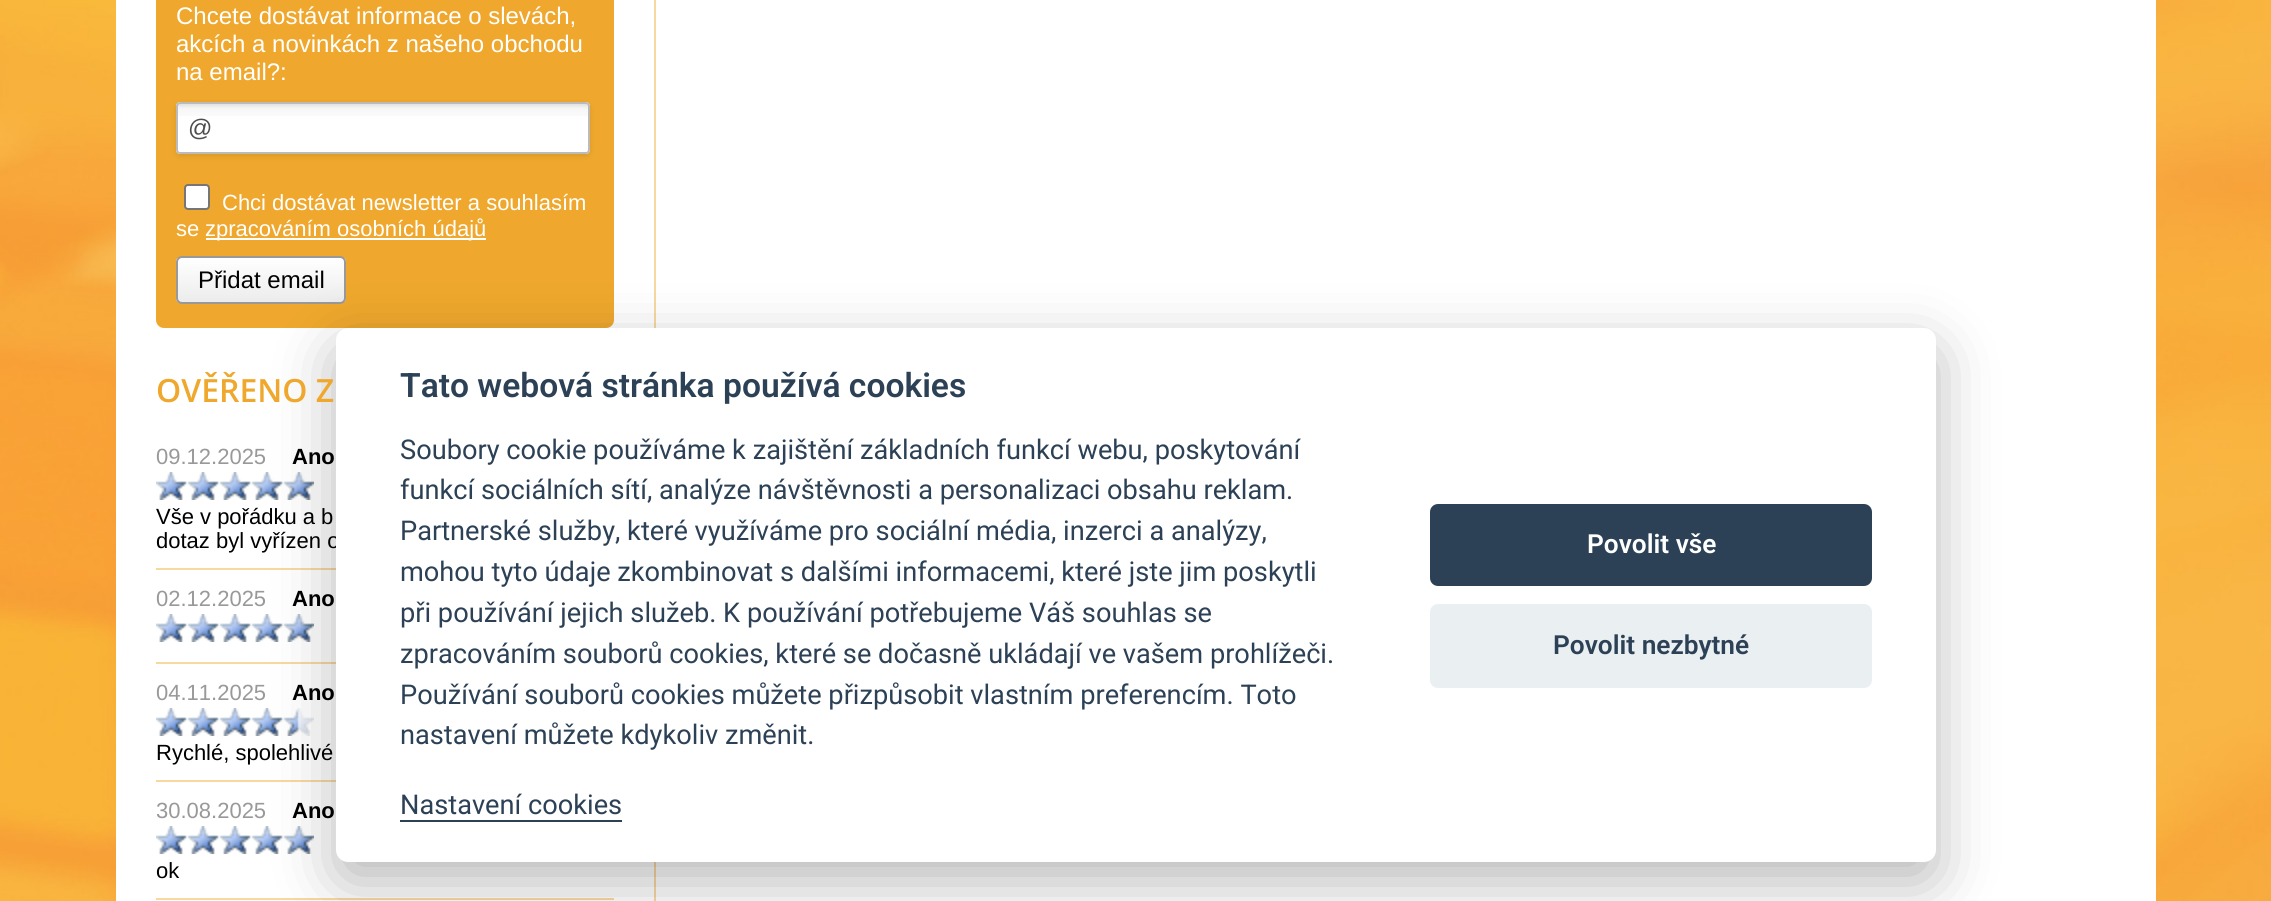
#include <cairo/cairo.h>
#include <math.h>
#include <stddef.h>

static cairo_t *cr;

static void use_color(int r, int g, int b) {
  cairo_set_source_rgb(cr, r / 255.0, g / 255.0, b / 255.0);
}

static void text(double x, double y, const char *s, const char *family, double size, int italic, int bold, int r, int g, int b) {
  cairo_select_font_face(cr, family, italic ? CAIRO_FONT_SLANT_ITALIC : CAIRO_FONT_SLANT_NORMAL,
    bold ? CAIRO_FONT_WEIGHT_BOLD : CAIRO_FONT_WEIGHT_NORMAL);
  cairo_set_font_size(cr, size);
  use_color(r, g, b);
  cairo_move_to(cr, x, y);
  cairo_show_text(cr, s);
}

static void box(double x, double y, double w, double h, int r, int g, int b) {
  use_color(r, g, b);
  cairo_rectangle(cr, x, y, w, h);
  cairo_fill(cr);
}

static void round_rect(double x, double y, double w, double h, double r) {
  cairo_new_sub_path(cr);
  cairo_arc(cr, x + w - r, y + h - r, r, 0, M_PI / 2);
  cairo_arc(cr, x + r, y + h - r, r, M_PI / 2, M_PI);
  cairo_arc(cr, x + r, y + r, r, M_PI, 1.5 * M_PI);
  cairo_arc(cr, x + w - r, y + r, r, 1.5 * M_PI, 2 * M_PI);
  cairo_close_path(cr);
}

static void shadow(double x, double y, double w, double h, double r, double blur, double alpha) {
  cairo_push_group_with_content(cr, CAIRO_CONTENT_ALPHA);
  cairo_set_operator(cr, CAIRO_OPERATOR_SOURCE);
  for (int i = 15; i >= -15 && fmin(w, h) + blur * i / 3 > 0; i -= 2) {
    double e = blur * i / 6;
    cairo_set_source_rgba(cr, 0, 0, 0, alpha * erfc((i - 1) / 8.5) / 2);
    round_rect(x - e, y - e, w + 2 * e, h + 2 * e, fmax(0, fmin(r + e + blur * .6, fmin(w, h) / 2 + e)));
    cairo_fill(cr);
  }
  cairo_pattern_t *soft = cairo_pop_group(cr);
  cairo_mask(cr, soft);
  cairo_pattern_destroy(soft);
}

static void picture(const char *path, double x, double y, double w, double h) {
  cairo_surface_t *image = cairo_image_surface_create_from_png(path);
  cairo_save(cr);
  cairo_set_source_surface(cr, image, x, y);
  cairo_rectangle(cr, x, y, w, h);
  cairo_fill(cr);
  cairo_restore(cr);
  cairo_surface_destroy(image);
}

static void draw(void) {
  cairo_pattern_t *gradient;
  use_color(255, 255, 255);
  cairo_paint(cr);
  picture("img_01.png", 0, 0, 2271, 901);
  box(116, 0, 2040, 901, 255, 255, 255);
  box(654, 0, 2, 901, 248, 216, 161);
  use_color(239, 168, 45);
  round_rect(156, -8, 458, 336, 8);
  cairo_fill(cr);
  use_color(0, 0, 0);
  shadow(176, 104, 414, 52, 4, 3, 0.1);
  use_color(255, 255, 255);
  round_rect(176, 102, 414, 52, 4);
  cairo_fill(cr);
  picture("img_02.png", 176, 104, 414, 12);
  round_rect(177, 103, 412, 50, 3);
  use_color(187, 187, 187);
  cairo_stroke(cr);
  use_color(255, 255, 255);
  round_rect(185, 185, 24, 24, 3);
  cairo_fill_preserve(cr);
  use_color(118, 118, 118);
  cairo_stroke(cr);
  box(206, 238, 280, 2, 255, 255, 255);
  cairo_save(cr);
  round_rect(176, 256, 170, 48, 6);
  cairo_clip(cr);
  gradient = cairo_pattern_create_linear(178, 258, 178, 302);
  cairo_pattern_add_color_stop_rgba(gradient, 0.05, 0.996, 0.996, 0.996, 1);
  cairo_pattern_add_color_stop_rgba(gradient, 1, 0.925, 0.925, 0.925, 1);
  cairo_set_source(cr, gradient);
  cairo_pattern_destroy(gradient);
  cairo_rectangle(cr, 176, 258, 170, 44);
  cairo_fill(cr);
  cairo_restore(cr);
  round_rect(177, 257, 168, 46, 5);
  use_color(153, 153, 153);
  cairo_stroke(cr);
  box(156, 568, 180, 2, 248, 216, 161);
  picture("img_03.png", 156, 472, 158, 28);
  box(156, 662, 180, 2, 248, 216, 161);
  picture("img_03.png", 156, 614, 158, 28);
  box(156, 780, 180, 2, 248, 216, 161);
  picture("img_04.png", 156, 708, 158, 28);
  box(156, 898, 458, 2, 248, 216, 161);
  picture("img_03.png", 156, 826, 158, 28);
  use_color(2, 2, 3);
  shadow(336, 348, 1600, 534, 12, 30, 0.28);
  text(176, 24, "Chcete dostávat informace o slevách,", "Liberation Sans", 24, 0, 0, 255, 255, 255);
  text(176, 52, "akcích a novinkách z našeho obchodu", "Liberation Sans", 24, 0, 0, 255, 255, 255);
  text(176, 80, "na email?:", "Liberation Sans", 24, 0, 0, 255, 255, 255);
  text(188, 136, "@", "Liberation Sans", 24, 0, 0, 77, 77, 77);
  text(222, 210, "Chci dostávat newsletter a souhlasím", "Liberation Sans", 22, 0, 0, 255, 255, 255);
  text(176, 236, "se", "Liberation Sans", 22, 0, 0, 255, 255, 255);
  text(205, 236, "zpracováním osobních údajů", "Liberation Sans", 22, 0, 0, 255, 255, 255);
  text(198, 288, "Přidat email", "Liberation Sans", 24, 0, 0, 0, 0, 0);
  text(156, 402, "OVĚŘENO Z", "Open Sans SemiBold", 32, 0, 0, 239, 168, 45);
  text(156, 464, "09.12.2025", "Liberation Sans", 22, 0, 0, 153, 153, 153);
  text(292, 464, "Ano", "Liberation Sans", 22, 0, 1, 0, 0, 0);
  text(156, 524, "Vše v pořádku a b", "Liberation Sans", 22, 0, 0, 0, 0, 0);
  text(156, 548, "dotaz byl vyřízen o", "Liberation Sans", 22, 0, 0, 0, 0, 0);
  text(156, 606, "02.12.2025", "Liberation Sans", 22, 0, 0, 153, 153, 153);
  text(292, 606, "Ano", "Liberation Sans", 22, 0, 1, 0, 0, 0);
  text(156, 700, "04.11.2025", "Liberation Sans", 22, 0, 0, 153, 153, 153);
  text(292, 700, "Ano", "Liberation Sans", 22, 0, 1, 0, 0, 0);
  text(156, 760, "Rychlé, spolehlivé", "Liberation Sans", 22, 0, 0, 0, 0, 0);
  text(156, 818, "30.08.2025", "Liberation Sans", 22, 0, 0, 153, 153, 153);
  text(292, 818, "Ano", "Liberation Sans", 22, 0, 1, 0, 0, 0);
  text(156, 878, "ok", "Liberation Sans", 22, 0, 0, 0, 0, 0);
  use_color(255, 255, 255);
  round_rect(336, 328, 1600, 534, 12);
  cairo_fill(cr);
  text(400, 397, "Tato webová stránka používá cookies", "Roboto SemiBold", 33.6, 0, 0, 45, 65, 86);
  text(400, 459, "Soubory cookie používáme k zajištění základních funkcí webu, poskytování", "Roboto", 27.2, 0, 0, 45, 65, 86);
  text(400, 499, "funkcí sociálních sítí, analýze návštěvnosti a personalizaci obsahu reklam.", "Roboto", 27.2, 0, 0, 45, 65, 86);
  text(400, 540, "Partnerské služby, které využíváme pro sociální média, inzerci a analýzy,", "Roboto", 27.2, 0, 0, 45, 65, 86);
  text(400, 581, "mohou tyto údaje zkombinovat s dalšími informacemi, které jste jim poskytli", "Roboto", 27.2, 0, 0, 45, 65, 86);
  text(400, 622, "při používání jejich služeb. K používání potřebujeme Váš souhlas se", "Roboto", 27.2, 0, 0, 45, 65, 86);
  text(400, 663, "zpracováním souborů cookies, které se dočasně ukládají ve vašem prohlížeči.", "Roboto", 27.2, 0, 0, 45, 65, 86);
  text(400, 704, "Používání souborů cookies můžete přizpůsobit vlastním preferencím. Toto", "Roboto", 27.2, 0, 0, 45, 65, 86);
  text(400, 744, "nastavení můžete kdykoliv změnit.", "Roboto", 27.2, 0, 0, 45, 65, 86);
  text(400, 814, "Nastavení cookies", "Roboto", 27.2, 0, 0, 45, 65, 86);
  box(400, 820, 222, 2, 45, 65, 86);
  round_rect(1430, 504, 442, 82, 8);
  cairo_fill(cr);
  text(1587, 553, "Povolit vše", "Roboto SemiBold", 26.25, 0, 0, 255, 255, 255);
  use_color(234, 239, 242);
  round_rect(1430, 604, 442, 84, 8);
  cairo_fill(cr);
  text(1553, 654, "Povolit nezbytné", "Roboto SemiBold", 26.25, 0, 0, 45, 65, 86);
}

int main(void) {
  cairo_surface_t *surface = cairo_image_surface_create(CAIRO_FORMAT_RGB24, 2271, 901);
  cr = cairo_create(surface);
  cairo_font_options_t *options = cairo_font_options_create();
  cairo_font_options_set_hint_metrics(options, CAIRO_HINT_METRICS_OFF);
  cairo_font_options_set_hint_style(options, CAIRO_HINT_STYLE_NONE);
  cairo_set_font_options(cr, options);
  cairo_set_miter_limit(cr, 4);
  draw();
  cairo_surface_write_to_png(surface, "out.png");
  cairo_font_options_destroy(options);
  cairo_destroy(cr);
  cairo_surface_destroy(surface);
  return 0;
}
